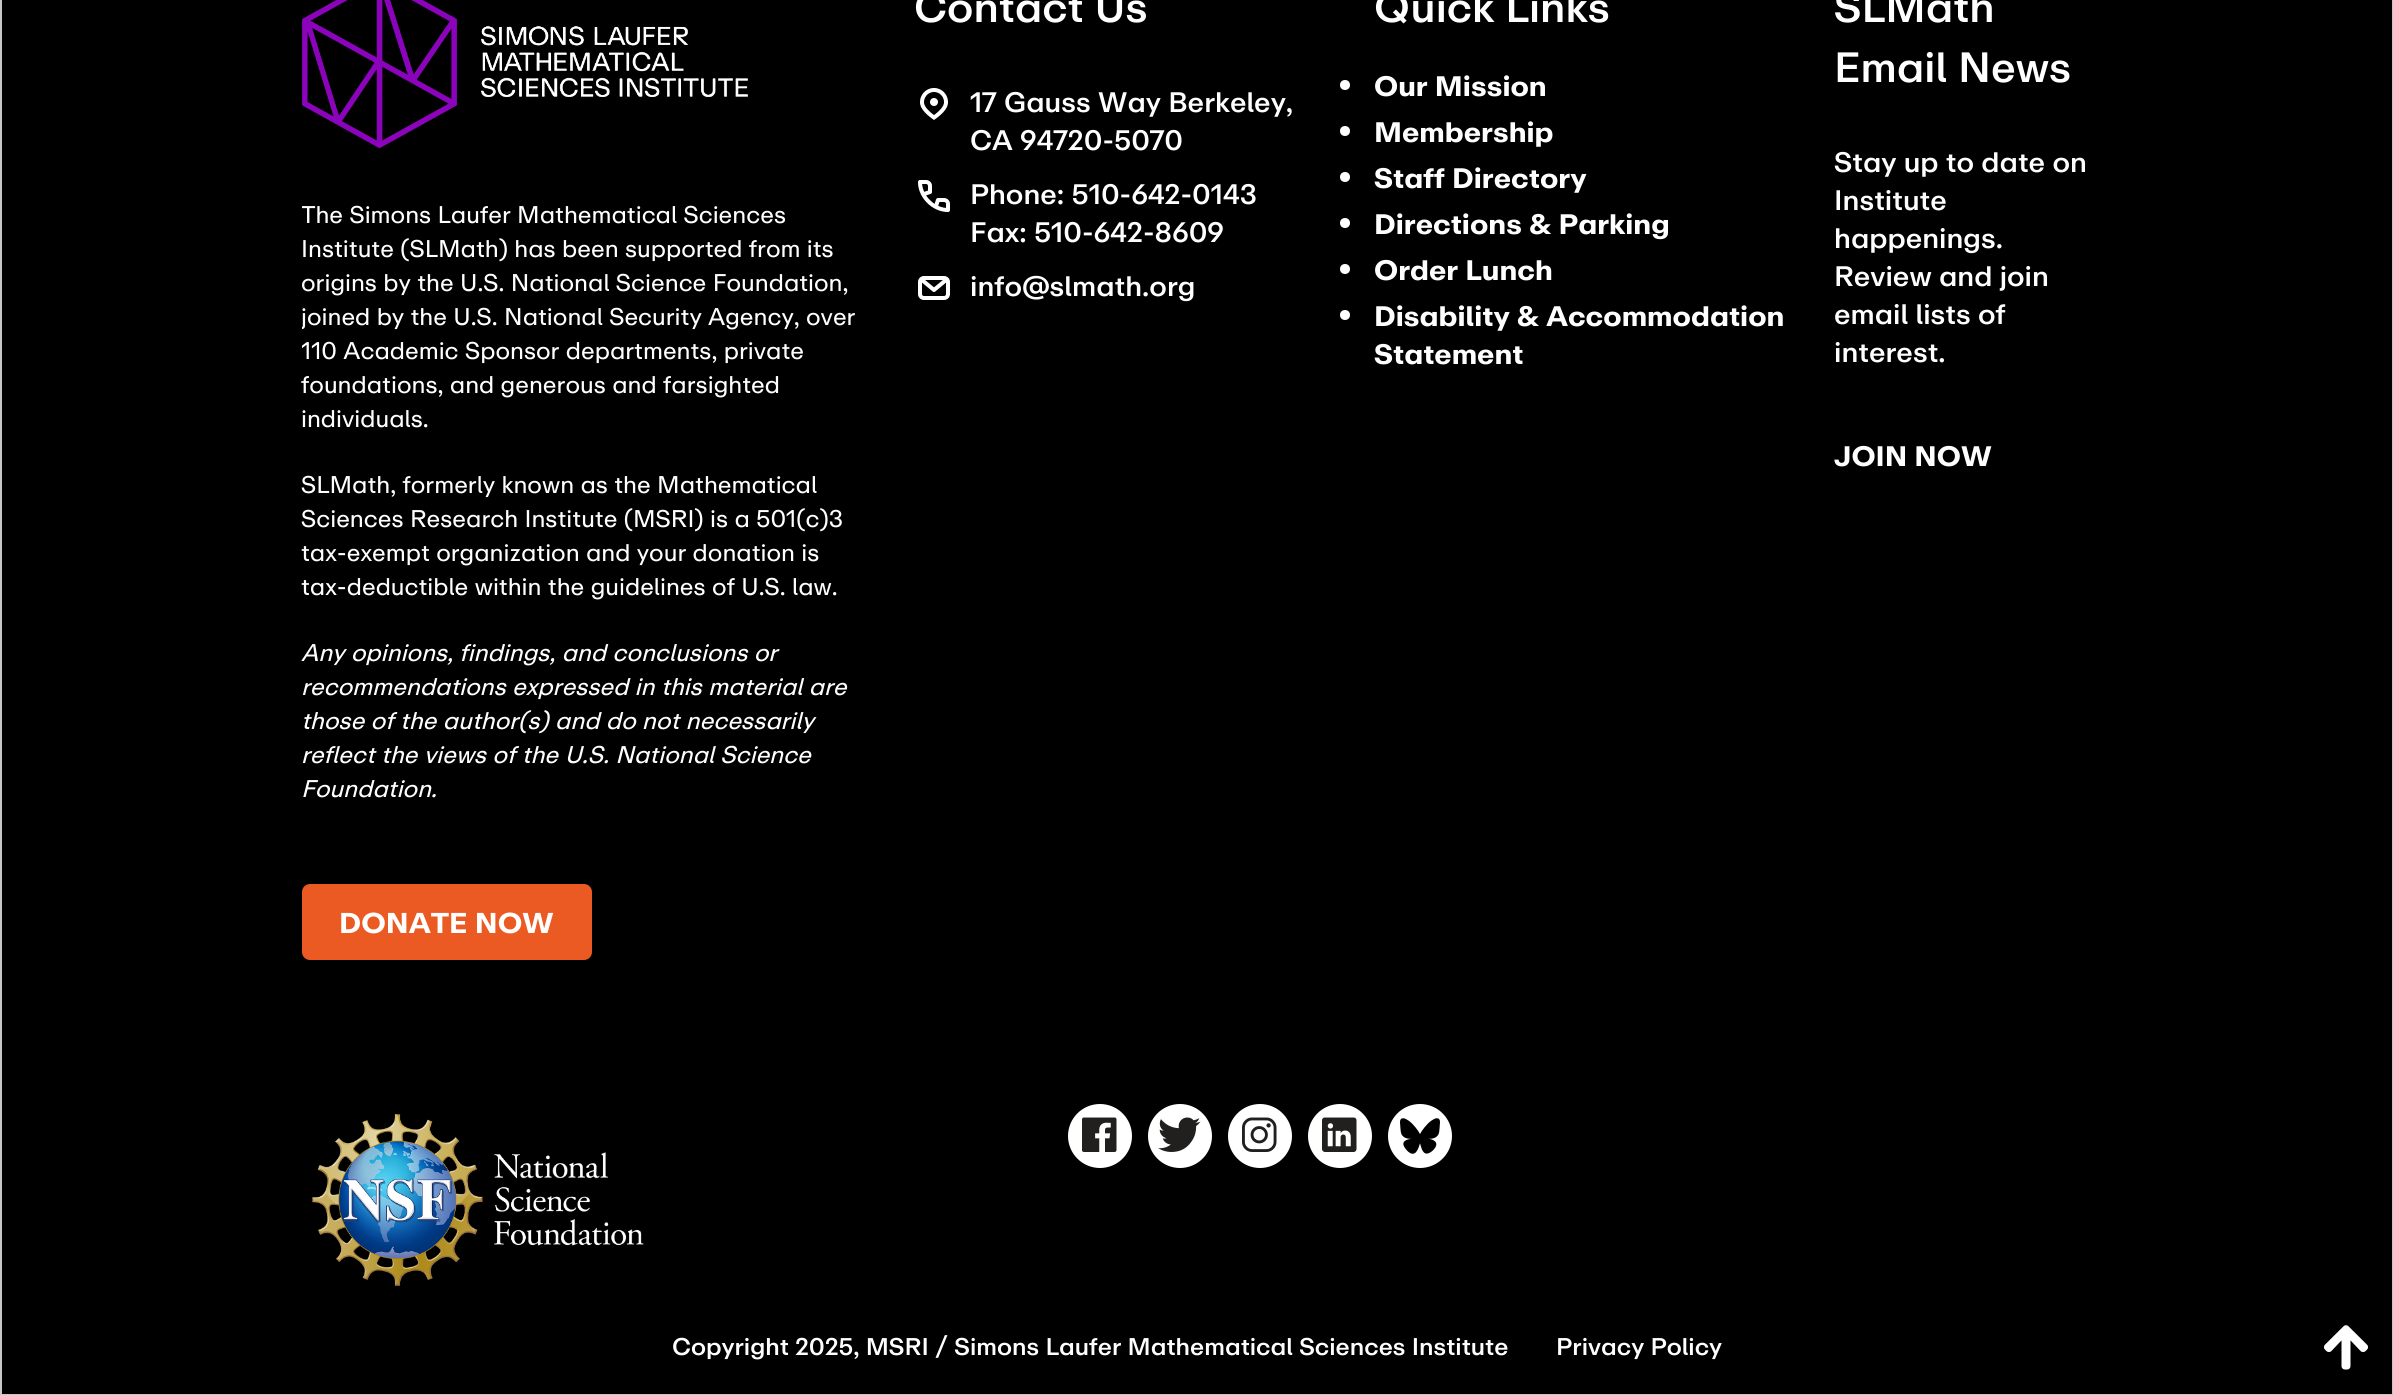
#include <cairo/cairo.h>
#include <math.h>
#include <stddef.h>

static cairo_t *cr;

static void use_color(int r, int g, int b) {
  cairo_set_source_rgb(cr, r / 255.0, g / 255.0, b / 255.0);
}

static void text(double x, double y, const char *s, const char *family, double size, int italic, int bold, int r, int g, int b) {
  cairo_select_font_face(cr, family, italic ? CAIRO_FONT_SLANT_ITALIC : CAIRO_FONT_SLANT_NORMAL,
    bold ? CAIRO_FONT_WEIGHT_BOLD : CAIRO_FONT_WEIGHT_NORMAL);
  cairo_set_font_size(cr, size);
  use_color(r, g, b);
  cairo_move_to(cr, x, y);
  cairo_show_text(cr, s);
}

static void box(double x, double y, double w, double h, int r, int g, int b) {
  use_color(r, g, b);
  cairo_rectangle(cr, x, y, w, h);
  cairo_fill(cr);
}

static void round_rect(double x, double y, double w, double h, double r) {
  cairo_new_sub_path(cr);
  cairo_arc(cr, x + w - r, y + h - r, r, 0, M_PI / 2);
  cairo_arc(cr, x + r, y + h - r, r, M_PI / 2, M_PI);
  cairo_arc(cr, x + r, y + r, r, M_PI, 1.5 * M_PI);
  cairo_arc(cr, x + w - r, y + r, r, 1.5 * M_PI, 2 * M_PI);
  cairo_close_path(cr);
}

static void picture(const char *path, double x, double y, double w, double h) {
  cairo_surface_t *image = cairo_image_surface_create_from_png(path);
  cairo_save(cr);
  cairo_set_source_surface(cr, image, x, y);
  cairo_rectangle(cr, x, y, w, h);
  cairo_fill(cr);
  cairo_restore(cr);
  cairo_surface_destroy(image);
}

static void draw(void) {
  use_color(255, 255, 255);
  cairo_paint(cr);
  cairo_rectangle(cr, 1, -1, 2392, 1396);
  use_color(199, 199, 199);
  cairo_stroke(cr);
  box(2, 0, 2390, 1394, 0, 0, 0);
  picture("img_01.png", 302, 0, 446, 148);
  use_color(235, 90, 35);
  round_rect(302, 884, 290, 76, 8);
  cairo_fill(cr);
  picture("img_02.png", 920, 88, 28, 32);
  picture("img_03.png", 918, 180, 32, 32);
  picture("img_04.png", 918, 276, 32, 24);
  use_color(255, 255, 255);
  cairo_arc(cr, 1345, 85, 5, 0, 2 * M_PI);
  cairo_fill(cr);
  cairo_arc(cr, 1345, 131, 5, 0, 2 * M_PI);
  cairo_fill(cr);
  cairo_arc(cr, 1345, 177, 5, 0, 2 * M_PI);
  cairo_fill(cr);
  cairo_arc(cr, 1345, 223, 5, 0, 2 * M_PI);
  cairo_fill(cr);
  cairo_arc(cr, 1345, 269, 5, 0, 2 * M_PI);
  cairo_fill(cr);
  cairo_arc(cr, 1345, 315, 5, 0, 2 * M_PI);
  cairo_fill(cr);
  picture("img_05.png", 312, 1114, 332, 172);
  cairo_arc(cr, 1100, 1136, 32, 0, 2 * M_PI);
  cairo_fill(cr);
  picture("img_06.png", 1082, 1117, 35, 35);
  cairo_arc(cr, 1180, 1136, 32, 0, 2 * M_PI);
  cairo_fill(cr);
  picture("img_07.png", 1158, 1117, 43, 35);
  cairo_arc(cr, 1260, 1136, 32, 0, 2 * M_PI);
  cairo_fill(cr);
  picture("img_08.png", 1242, 1117, 35, 35);
  cairo_arc(cr, 1340, 1136, 32, 0, 2 * M_PI);
  cairo_fill(cr);
  picture("img_09.png", 1322, 1117, 35, 35);
  cairo_arc(cr, 1420, 1136, 32, 0, 2 * M_PI);
  cairo_fill(cr);
  picture("img_10.png", 1400, 1118, 40, 36);
  cairo_arc(cr, 2346, 1348, 32, 0, 2 * M_PI);
  cairo_fill(cr);
  picture("img_11.png", 2314, 1316, 64, 64);
  cairo_save(cr);
  cairo_rectangle(cr, 302, 196, 564, 640);
  cairo_clip(cr);
  text(301, 223, "The Simons Laufer Mathematical Sciences", "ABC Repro", 24, 0, 0, 255, 255, 255);
  cairo_restore(cr);
  text(301, 257, "Institute (SLMath) has been supported from its", "ABC Repro", 24, 0, 0, 255, 255, 255);
  text(301, 291, "origins by the U.S. National Science Foundation,", "ABC Repro", 24, 0, 0, 255, 255, 255);
  cairo_save(cr);
  cairo_rectangle(cr, 302, 196, 564, 640);
  cairo_clip(cr);
  text(301, 325, "joined by the U.S. National Security Agency, over", "ABC Repro", 24, 0, 0, 255, 255, 255);
  text(301, 359, "110 Academic Sponsor departments, private", "ABC Repro", 24, 0, 0, 255, 255, 255);
  cairo_restore(cr);
  text(301, 393, "foundations, and generous and farsighted", "ABC Repro", 24, 0, 0, 255, 255, 255);
  text(301, 427, "individuals.", "ABC Repro", 24, 0, 0, 255, 255, 255);
  text(301, 493, "SLMath, formerly known as the Mathematical", "ABC Repro", 24, 0, 0, 255, 255, 255);
  text(301, 527, "Sciences Research Institute (MSRI) is a 501(c)3", "ABC Repro", 24, 0, 0, 255, 255, 255);
  text(301, 561, "tax-exempt organization and your donation is", "ABC Repro", 24, 0, 0, 255, 255, 255);
  text(301, 595, "tax-deductible within the guidelines of U.S. law.", "ABC Repro", 24, 0, 0, 255, 255, 255);
  text(301, 661, "Any opinions, findings, and conclusions or", "ABC Repro", 24, 1, 0, 255, 255, 255);
  text(301, 695, "recommendations expressed in this material are", "ABC Repro", 24, 1, 0, 255, 255, 255);
  text(301, 729, "those of the author(s) and do not necessarily", "ABC Repro", 24, 1, 0, 255, 255, 255);
  text(301, 763, "reflect the views of the U.S. National Science", "ABC Repro", 24, 1, 0, 255, 255, 255);
  text(301, 797, "Foundation.", "ABC Repro", 24, 1, 0, 255, 255, 255);
  text(339, 933, "DONATE NOW", "ABC Repro", 28.5, 0, 1, 255, 255, 255);
  text(914, 22, "Contact Us", "ABC Repro Medium", 42, 0, 0, 255, 255, 255);
  text(970, 112, "17 Gauss Way Berkeley,", "ABC Repro Medium", 28, 0, 0, 255, 255, 255);
  text(970, 150, "CA 94720-5070", "ABC Repro Medium", 28, 0, 0, 255, 255, 255);
  text(970, 204, "Phone: 510-642-0143", "ABC Repro Medium", 28, 0, 0, 255, 255, 255);
  text(970, 242, "Fax: 510-642-8609", "ABC Repro Medium", 28, 0, 0, 255, 255, 255);
  text(970, 296, "info@slmath.org", "ABC Repro Medium", 28, 0, 0, 255, 255, 255);
  text(1374, 22, "Quick Links", "ABC Repro Medium", 42, 0, 0, 255, 255, 255);
  text(1374, 96, "Our Mission", "ABC Repro", 28, 0, 1, 255, 255, 255);
  text(1374, 142, "Membership", "ABC Repro", 28, 0, 1, 255, 255, 255);
  text(1374, 188, "Staff Directory", "ABC Repro", 28, 0, 1, 255, 255, 255);
  text(1374, 234, "Directions & Parking", "ABC Repro", 28, 0, 1, 255, 255, 255);
  text(1374, 280, "Order Lunch", "ABC Repro", 28, 0, 1, 255, 255, 255);
  text(1374, 326, "Disability & Accommodation", "ABC Repro", 28, 0, 1, 255, 255, 255);
  text(1374, 364, "Statement", "ABC Repro", 28, 0, 1, 255, 255, 255);
  text(1834, 22, "SLMath", "ABC Repro Medium", 42, 0, 0, 255, 255, 255);
  text(1834, 82, "Email News", "ABC Repro Medium", 42, 0, 0, 255, 255, 255);
  text(1834, 172, "Stay up to date on", "ABC Repro Medium", 28, 0, 0, 255, 255, 255);
  text(1834, 210, "Institute", "ABC Repro Medium", 28, 0, 0, 255, 255, 255);
  text(1834, 248, "happenings.", "ABC Repro Medium", 28, 0, 0, 255, 255, 255);
  text(1834, 286, "Review and join", "ABC Repro Medium", 28, 0, 0, 255, 255, 255);
  text(1834, 324, "email lists of", "ABC Repro Medium", 28, 0, 0, 255, 255, 255);
  text(1834, 362, "interest.", "ABC Repro Medium", 28, 0, 0, 255, 255, 255);
  text(1834, 466, "JOIN NOW", "ABC Repro", 28, 0, 1, 255, 255, 255);
  text(672, 1355, "Copyright 2025, MSRI / Simons Laufer Mathematical Sciences Institute", "ABC Repro Medium", 24, 0, 0, 255, 255, 255);
  text(1556, 1355, "Privacy Policy", "ABC Repro Medium", 24, 0, 0, 255, 255, 255);
}

int main(void) {
  cairo_surface_t *surface = cairo_image_surface_create(CAIRO_FORMAT_RGB24, 2393, 1395);
  cr = cairo_create(surface);
  cairo_font_options_t *options = cairo_font_options_create();
  cairo_font_options_set_hint_metrics(options, CAIRO_HINT_METRICS_OFF);
  cairo_font_options_set_hint_style(options, CAIRO_HINT_STYLE_NONE);
  cairo_set_font_options(cr, options);
  cairo_set_miter_limit(cr, 4);
  draw();
  cairo_surface_write_to_png(surface, "out.png");
  cairo_font_options_destroy(options);
  cairo_destroy(cr);
  cairo_surface_destroy(surface);
  return 0;
}
